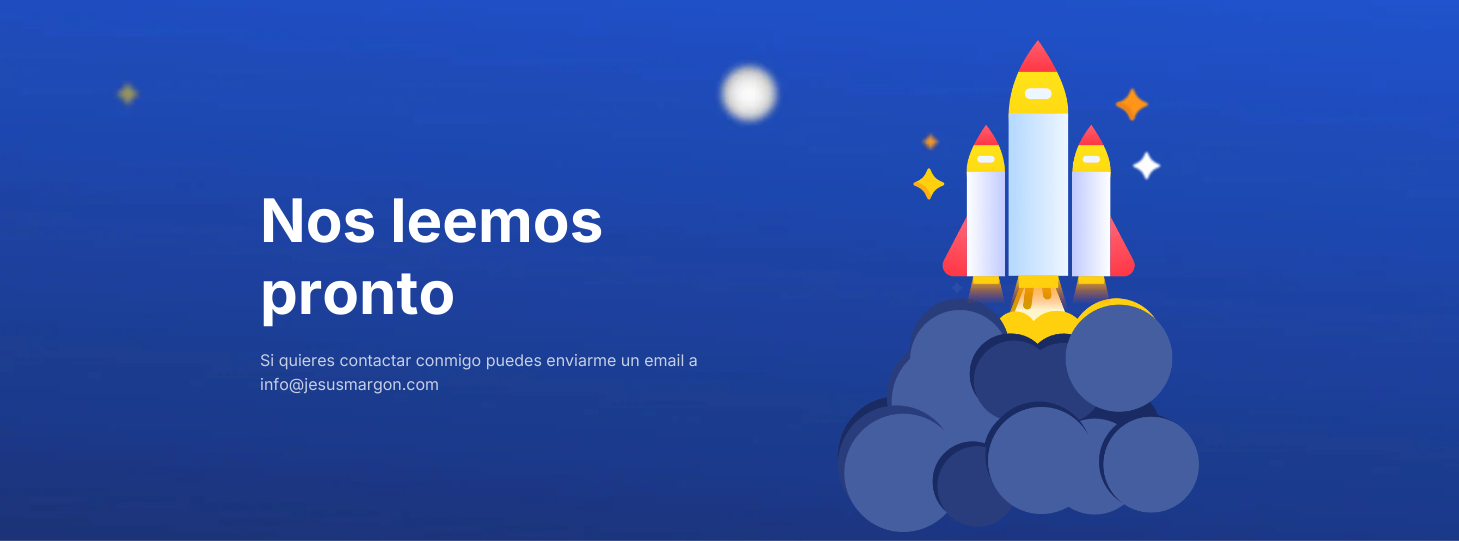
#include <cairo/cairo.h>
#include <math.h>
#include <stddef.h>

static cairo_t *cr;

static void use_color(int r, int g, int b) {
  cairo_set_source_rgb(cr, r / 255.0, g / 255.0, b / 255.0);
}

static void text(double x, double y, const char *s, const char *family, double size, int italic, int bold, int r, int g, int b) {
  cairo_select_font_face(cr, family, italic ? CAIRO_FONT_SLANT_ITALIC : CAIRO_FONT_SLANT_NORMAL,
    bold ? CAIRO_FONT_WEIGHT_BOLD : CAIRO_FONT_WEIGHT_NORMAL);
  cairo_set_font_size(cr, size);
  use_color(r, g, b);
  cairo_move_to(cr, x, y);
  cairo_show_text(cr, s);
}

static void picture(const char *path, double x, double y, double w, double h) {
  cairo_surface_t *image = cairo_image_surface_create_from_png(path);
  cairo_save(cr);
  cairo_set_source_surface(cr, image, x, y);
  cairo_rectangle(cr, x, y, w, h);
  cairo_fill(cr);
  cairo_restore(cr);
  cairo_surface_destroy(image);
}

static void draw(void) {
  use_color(255, 255, 255);
  cairo_paint(cr);
  picture("img_01.png", 0, 0, 1459, 541);
  picture("img_02.png", 838, 40, 361, 492);
  text(260, 242, "Nos leemos", "Inter", 60, 0, 1, 255, 255, 255);
  text(260, 314, "pronto", "Inter", 60, 0, 1, 255, 255, 255);
  text(260, 366, "Si quieres contactar conmigo puedes enviarme un email a", "Inter", 16, 0, 0, 198, 207, 228);
  text(260, 390, "info@jesusmargon.com", "Inter", 16, 0, 0, 198, 207, 228);
}

int main(void) {
  cairo_surface_t *surface = cairo_image_surface_create(CAIRO_FORMAT_RGB24, 1459, 541);
  cr = cairo_create(surface);
  cairo_font_options_t *options = cairo_font_options_create();
  cairo_font_options_set_hint_metrics(options, CAIRO_HINT_METRICS_OFF);
  cairo_font_options_set_hint_style(options, CAIRO_HINT_STYLE_NONE);
  cairo_set_font_options(cr, options);
  cairo_set_miter_limit(cr, 4);
  draw();
  cairo_surface_write_to_png(surface, "out.png");
  cairo_font_options_destroy(options);
  cairo_destroy(cr);
  cairo_surface_destroy(surface);
  return 0;
}
